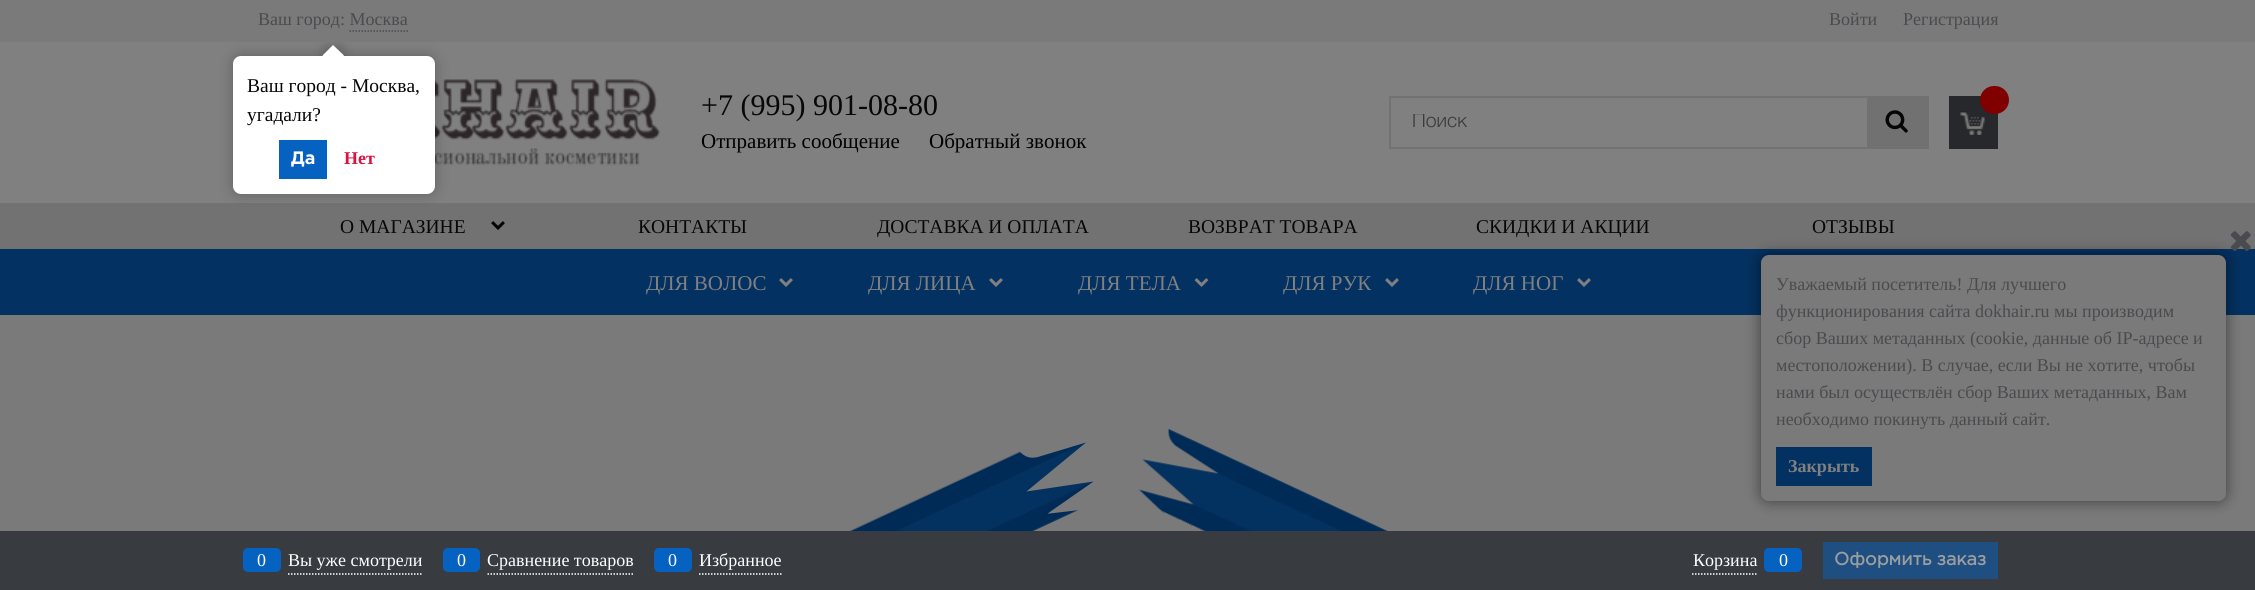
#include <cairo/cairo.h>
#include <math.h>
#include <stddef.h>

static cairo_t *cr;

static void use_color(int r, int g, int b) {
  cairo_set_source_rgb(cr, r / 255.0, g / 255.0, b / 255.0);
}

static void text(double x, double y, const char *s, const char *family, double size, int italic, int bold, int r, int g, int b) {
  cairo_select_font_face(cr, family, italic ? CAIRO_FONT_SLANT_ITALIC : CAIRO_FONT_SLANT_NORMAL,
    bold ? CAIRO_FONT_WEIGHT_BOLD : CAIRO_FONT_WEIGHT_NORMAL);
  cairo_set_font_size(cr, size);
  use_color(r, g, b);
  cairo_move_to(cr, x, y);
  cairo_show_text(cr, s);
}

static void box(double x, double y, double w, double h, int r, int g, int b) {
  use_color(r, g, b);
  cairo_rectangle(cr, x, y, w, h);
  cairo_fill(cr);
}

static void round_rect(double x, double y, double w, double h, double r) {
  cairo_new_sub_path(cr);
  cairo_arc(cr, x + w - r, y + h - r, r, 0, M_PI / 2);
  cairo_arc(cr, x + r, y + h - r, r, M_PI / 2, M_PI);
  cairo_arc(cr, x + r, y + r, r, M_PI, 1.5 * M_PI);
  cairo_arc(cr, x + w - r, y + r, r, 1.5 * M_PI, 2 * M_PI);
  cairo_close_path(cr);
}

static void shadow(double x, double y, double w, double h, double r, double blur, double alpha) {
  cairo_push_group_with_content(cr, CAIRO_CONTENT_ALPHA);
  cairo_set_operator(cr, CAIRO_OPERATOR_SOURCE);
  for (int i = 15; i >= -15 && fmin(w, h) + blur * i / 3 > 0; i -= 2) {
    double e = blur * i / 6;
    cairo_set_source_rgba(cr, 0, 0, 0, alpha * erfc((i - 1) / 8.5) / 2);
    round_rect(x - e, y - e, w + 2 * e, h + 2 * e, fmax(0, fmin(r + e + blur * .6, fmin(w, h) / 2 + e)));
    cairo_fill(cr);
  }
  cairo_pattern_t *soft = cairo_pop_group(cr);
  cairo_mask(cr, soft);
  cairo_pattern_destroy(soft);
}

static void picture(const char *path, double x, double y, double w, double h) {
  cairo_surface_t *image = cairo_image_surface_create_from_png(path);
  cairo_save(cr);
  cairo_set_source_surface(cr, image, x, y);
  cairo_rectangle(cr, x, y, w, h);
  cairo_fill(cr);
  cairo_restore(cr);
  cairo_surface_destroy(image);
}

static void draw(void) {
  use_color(128, 128, 128);
  cairo_paint(cr);
  box(0, 0, 2255, 42, 122, 122, 122);
  cairo_new_path(cr);
  cairo_move_to(cr, 349.5, 31);
  cairo_line_to(cr, 408, 31);
  use_color(74, 75, 78);
  cairo_set_line_width(cr, 1.5);
  cairo_set_dash(cr, (double[]){1.5, 1.5}, 2, 0);
  cairo_stroke(cr);
  picture("img_01.png", 435, 79, 226, 87);
  cairo_rectangle(cr, 1390, 97, 478, 51);
  use_color(113, 114, 114);
  cairo_set_line_width(cr, 2);
  cairo_set_dash(cr, NULL, 0, 0);
  cairo_stroke(cr);
  box(1869, 96, 60, 53, 113, 113, 113);
  picture("img_02.png", 1885, 110, 23, 23);
  box(1949, 96, 49, 53, 38, 40, 44);
  picture("img_03.png", 1960, 111, 25, 24);
  use_color(128, 0, 0);
  round_rect(1980, 86, 29, 28, 14);
  cairo_fill(cr);
  box(0, 203, 2255, 46, 114, 114, 114);
  picture("img_04.png", 491, 221, 14, 9);
  box(0, 315, 2255, 216, 122, 122, 122);
  box(0, 249, 2255, 66, 3, 49, 97);
  picture("img_05.png", 779, 278, 14, 9);
  picture("img_05.png", 989, 278, 14, 9);
  picture("img_06.png", 1194, 278, 15, 9);
  picture("img_05.png", 1385, 278, 14, 9);
  picture("img_05.png", 1577, 278, 14, 9);
  picture("img_07.png", 849, 428, 539, 103);
  box(0, 531, 2255, 59, 56, 60, 64);
  cairo_new_path(cr);
  cairo_move_to(cr, 288, 574);
  cairo_line_to(cr, 423, 574);
  use_color(255, 255, 255);
  cairo_set_line_width(cr, 1.5);
  cairo_set_dash(cr, (double[]){1.5, 1.5}, 2, 0);
  cairo_stroke(cr);
  use_color(6, 98, 193);
  round_rect(243, 548, 38, 24, 5);
  cairo_fill(cr);
  cairo_new_path(cr);
  cairo_move_to(cr, 487.5, 574);
  cairo_line_to(cr, 634.5, 574);
  use_color(255, 255, 255);
  cairo_stroke(cr);
  use_color(6, 98, 193);
  round_rect(443, 548, 37, 24, 5);
  cairo_fill(cr);
  cairo_new_path(cr);
  cairo_move_to(cr, 699, 574);
  cairo_line_to(cr, 781.5, 574);
  use_color(255, 255, 255);
  cairo_stroke(cr);
  use_color(6, 98, 193);
  round_rect(654, 548, 38, 24, 5);
  cairo_fill(cr);
  cairo_new_path(cr);
  cairo_move_to(cr, 1692, 574);
  cairo_line_to(cr, 1756.5, 574);
  use_color(255, 255, 255);
  cairo_stroke(cr);
  use_color(6, 98, 193);
  round_rect(1764, 548, 38, 24, 5);
  cairo_fill(cr);
  box(1823, 542, 175, 37, 31, 79, 129);
  use_color(0, 0, 0);
  shadow(233, 56, 202, 138, 8, 7, 0.25);
  use_color(255, 255, 255);
  round_rect(233, 56, 202, 138, 8);
  cairo_fill(cr);
  cairo_save(cr);
  cairo_rectangle(cr, 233, 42, 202, 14);
  cairo_clip(cr);
  use_color(0, 0, 0);
  shadow(326, 48, 15, 15, 0, 7, 0.25);
  cairo_restore(cr);
  cairo_save(cr);
  cairo_rectangle(cr, 233, 42, 202, 14);
  cairo_clip(cr);
  cairo_new_path(cr);
  cairo_move_to(cr, 333, 45);
  cairo_line_to(cr, 344, 55.5);
  cairo_line_to(cr, 333, 66);
  cairo_line_to(cr, 322.5, 55.5);
  cairo_close_path(cr);
  cairo_fill(cr);
  cairo_restore(cr);
  box(279, 140, 48, 39, 6, 98, 193);
  use_color(0, 0, 0);
  shadow(1761, 255, 465, 246, 8, 7.5, 0.5);
  use_color(122, 122, 122);
  round_rect(1761, 255, 465, 246, 8);
  cairo_fill(cr);
  picture("img_08.png", 2230, 231, 21, 20);
  box(1776, 447, 96, 39, 3, 49, 97);
  text(258, 25, "Ваш город: Москва", "Liberation Serif", 18, 0, 0, 74, 75, 78);
  text(1829, 25, "Войти", "Liberation Serif", 18, 0, 0, 74, 75, 78);
  text(1903, 25, "Регистрация", "Liberation Serif", 18, 0, 0, 74, 75, 78);
  text(701, 115, "+7 (995) 901-08-80", "Liberation Serif", 30, 0, 0, 7, 7, 7);
  text(701, 148, "Отправить сообщение", "Liberation Serif", 21, 0, 0, 0, 0, 0);
  text(929, 148, "Обратный звонок", "Liberation Serif", 21, 0, 0, 0, 0, 0);
  cairo_save(cr);
  cairo_rectangle(cr, 1412, 114, 433, 18);
  cairo_clip(cr);
  text(1412, 127, "Поиск", "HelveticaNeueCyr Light", 19.5, 0, 0, 59, 59, 59);
  cairo_restore(cr);
  text(340, 233, "О МАГАЗИНЕ", "Liberation Serif", 19.5, 0, 0, 7, 7, 7);
  text(638, 233, "КОНТАКТЫ", "Liberation Serif", 19.5, 0, 0, 7, 7, 7);
  text(877, 233, "ДОСТАВКА И ОПЛАТА", "Liberation Serif", 19.5, 0, 0, 7, 7, 7);
  text(1188, 233, "ВОЗВРАТ ТОВАРА", "Liberation Serif", 19.5, 0, 0, 7, 7, 7);
  text(1476, 233, "СКИДКИ И АКЦИИ", "Liberation Serif", 19.5, 0, 0, 7, 7, 7);
  text(1812, 233, "ОТЗЫВЫ", "Liberation Serif", 19.5, 0, 0, 7, 7, 7);
  text(646, 290, "ДЛЯ ВОЛОС", "Liberation Serif", 21, 0, 0, 128, 128, 128);
  text(868, 290, "ДЛЯ ЛИЦА", "Liberation Serif", 21, 0, 0, 128, 128, 128);
  text(1078, 290, "ДЛЯ ТЕЛА", "Liberation Serif", 21, 0, 0, 128, 128, 128);
  text(1283, 290, "ДЛЯ РУК", "Liberation Serif", 21, 0, 0, 128, 128, 128);
  text(1473, 290, "ДЛЯ НОГ", "Liberation Serif", 21, 0, 0, 128, 128, 128);
  text(257, 566, "0", "Liberation Serif", 18, 0, 0, 255, 255, 255);
  text(288, 566, "Вы уже смотрели", "Liberation Serif", 18, 0, 0, 255, 255, 255);
  text(457, 566, "0", "Liberation Serif", 18, 0, 0, 255, 255, 255);
  text(487, 566, "Сравнение товаров", "Liberation Serif", 18, 0, 0, 255, 255, 255);
  text(668, 566, "0", "Liberation Serif", 18, 0, 0, 255, 255, 255);
  text(699, 566, "Избранное", "Liberation Serif", 18, 0, 0, 255, 255, 255);
  text(1693, 566, "Корзина", "Liberation Serif", 18, 0, 0, 255, 255, 255);
  text(1779, 566, "0", "Liberation Serif", 18, 0, 0, 255, 255, 255);
  text(1834, 565, "Оформить заказ", "Gotham", 18, 0, 1, 156, 158, 160);
  text(247, 92, "Ваш город - Москва,", "Liberation Serif", 19.5, 0, 0, 7, 7, 7);
  text(247, 121, "угадали?", "Liberation Serif", 19.5, 0, 0, 7, 7, 7);
  text(291, 164, "Да", "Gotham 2", 18, 0, 1, 255, 255, 255);
  text(344, 164, "Нет", "Liberation Serif", 18, 0, 1, 218, 18, 63);
  text(1776, 290, "Уважаемый посетитель! Для лучшего", "Liberation Serif", 18, 0, 0, 74, 75, 78);
  text(1776, 317, "функционирования сайта dokhair.ru мы производим", "Liberation Serif", 18, 0, 0, 74, 75, 78);
  text(1776, 344, "сбор Ваших метаданных (cookie, данные об IP-адресе и", "Liberation Serif", 18, 0, 0, 74, 75, 78);
  text(1776, 371, "местоположении). В случае, если Вы не хотите, чтобы", "Liberation Serif", 18, 0, 0, 74, 75, 78);
  text(1776, 398, "нами был осуществлён сбор Ваших метаданных, Вам", "Liberation Serif", 18, 0, 0, 74, 75, 78);
  text(1776, 425, "необходимо покинуть данный сайт.", "Liberation Serif", 18, 0, 0, 74, 75, 78);
  text(1788, 472, "Закрыть", "Liberation Serif", 18, 0, 1, 128, 128, 128);
}

int main(void) {
  cairo_surface_t *surface = cairo_image_surface_create(CAIRO_FORMAT_RGB24, 2255, 590);
  cr = cairo_create(surface);
  cairo_font_options_t *options = cairo_font_options_create();
  cairo_font_options_set_hint_metrics(options, CAIRO_HINT_METRICS_OFF);
  cairo_font_options_set_hint_style(options, CAIRO_HINT_STYLE_NONE);
  cairo_set_font_options(cr, options);
  cairo_set_miter_limit(cr, 4);
  draw();
  cairo_surface_write_to_png(surface, "out.png");
  cairo_font_options_destroy(options);
  cairo_destroy(cr);
  cairo_surface_destroy(surface);
  return 0;
}
